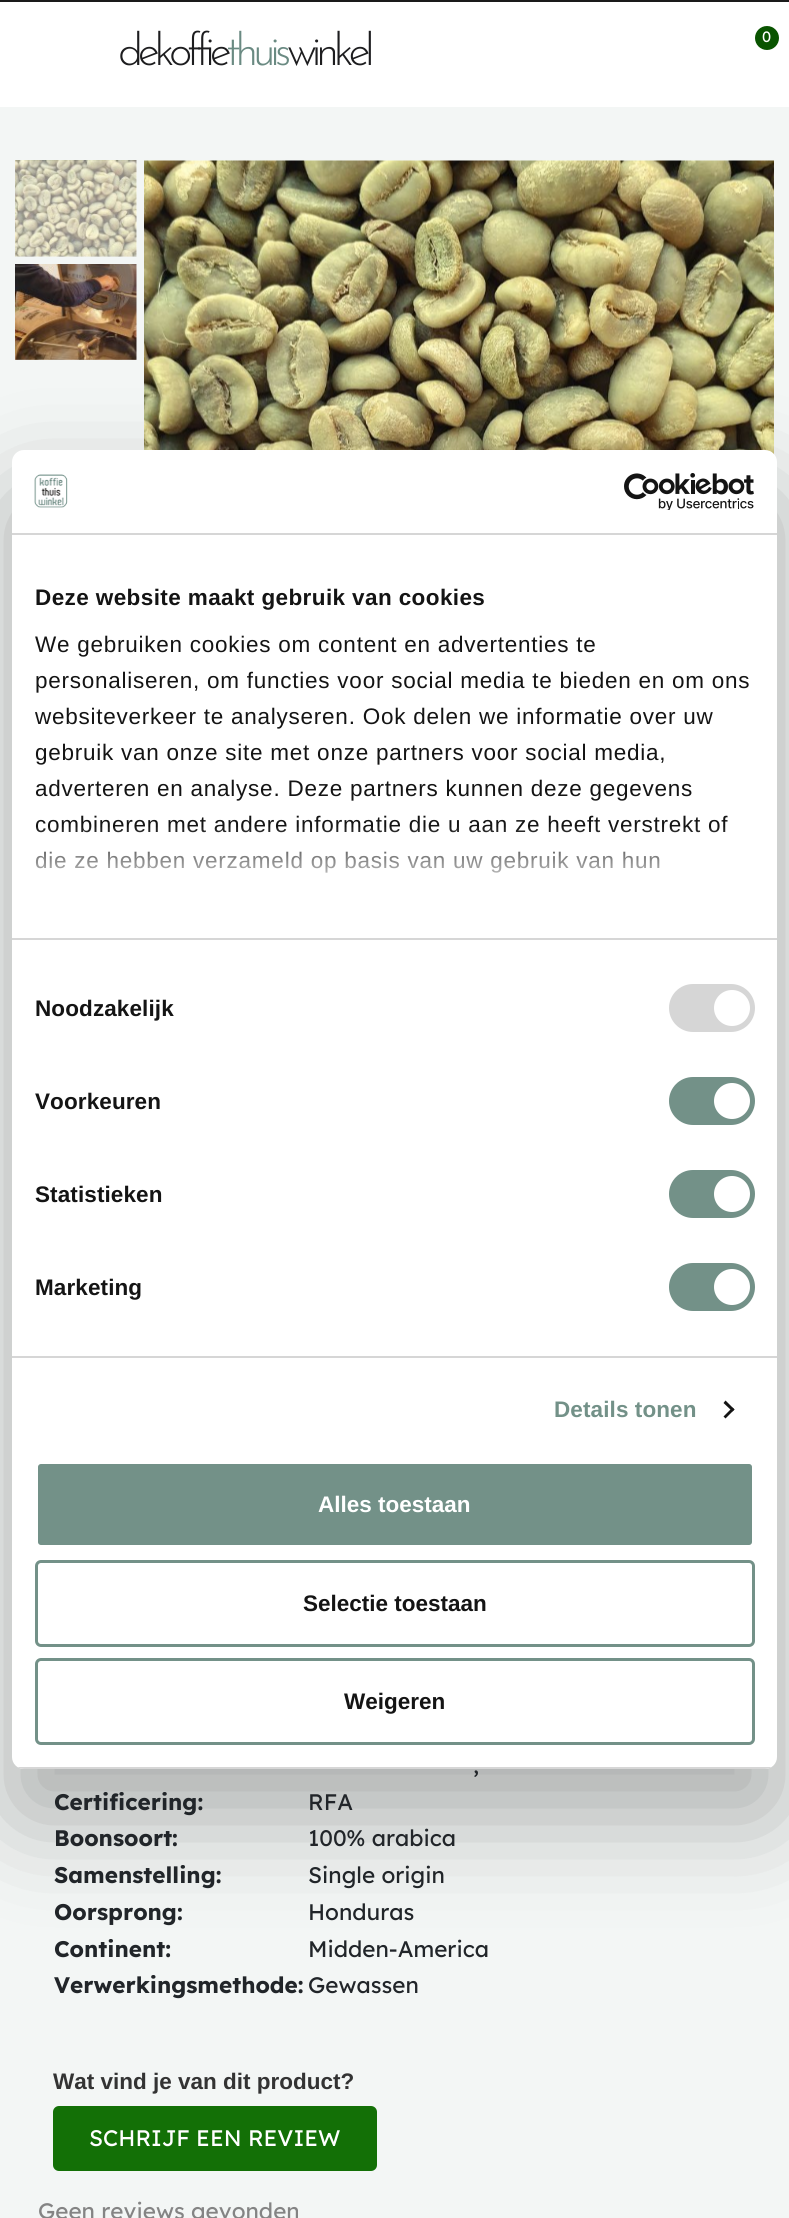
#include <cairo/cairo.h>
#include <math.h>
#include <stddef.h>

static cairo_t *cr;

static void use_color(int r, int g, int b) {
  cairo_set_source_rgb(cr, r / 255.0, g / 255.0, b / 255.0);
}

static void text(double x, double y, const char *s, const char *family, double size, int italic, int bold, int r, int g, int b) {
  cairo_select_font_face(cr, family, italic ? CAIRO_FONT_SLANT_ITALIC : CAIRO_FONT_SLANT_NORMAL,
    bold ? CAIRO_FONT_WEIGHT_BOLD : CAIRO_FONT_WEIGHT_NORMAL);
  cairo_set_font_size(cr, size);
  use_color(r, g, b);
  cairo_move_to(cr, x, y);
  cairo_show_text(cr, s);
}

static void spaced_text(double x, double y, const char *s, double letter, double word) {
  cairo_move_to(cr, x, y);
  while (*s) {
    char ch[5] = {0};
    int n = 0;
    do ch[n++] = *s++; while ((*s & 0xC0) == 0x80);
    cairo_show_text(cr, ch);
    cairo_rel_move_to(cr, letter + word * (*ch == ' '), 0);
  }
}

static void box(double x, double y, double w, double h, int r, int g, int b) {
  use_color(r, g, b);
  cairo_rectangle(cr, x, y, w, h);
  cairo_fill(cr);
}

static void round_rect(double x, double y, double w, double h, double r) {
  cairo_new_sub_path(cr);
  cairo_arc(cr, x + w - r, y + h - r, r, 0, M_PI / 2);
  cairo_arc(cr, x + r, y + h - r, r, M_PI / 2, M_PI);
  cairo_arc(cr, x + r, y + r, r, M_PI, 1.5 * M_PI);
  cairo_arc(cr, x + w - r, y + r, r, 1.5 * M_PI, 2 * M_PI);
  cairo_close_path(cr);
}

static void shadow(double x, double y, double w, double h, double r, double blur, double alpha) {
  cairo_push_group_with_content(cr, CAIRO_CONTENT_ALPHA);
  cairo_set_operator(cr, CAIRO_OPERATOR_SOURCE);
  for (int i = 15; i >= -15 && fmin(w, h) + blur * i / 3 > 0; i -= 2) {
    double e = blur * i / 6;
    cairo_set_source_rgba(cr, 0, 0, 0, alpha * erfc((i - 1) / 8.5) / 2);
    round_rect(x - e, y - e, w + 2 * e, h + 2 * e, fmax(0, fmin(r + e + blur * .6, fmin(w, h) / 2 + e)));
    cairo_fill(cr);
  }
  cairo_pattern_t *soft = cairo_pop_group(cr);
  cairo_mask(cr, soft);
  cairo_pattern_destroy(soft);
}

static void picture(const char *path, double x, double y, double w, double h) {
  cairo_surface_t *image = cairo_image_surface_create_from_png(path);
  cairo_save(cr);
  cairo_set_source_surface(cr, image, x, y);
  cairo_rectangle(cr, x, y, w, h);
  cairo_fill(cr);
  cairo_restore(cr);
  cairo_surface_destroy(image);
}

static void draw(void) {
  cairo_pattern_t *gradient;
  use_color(243, 246, 245);
  cairo_paint(cr);
  box(15, 161, 122, 96, 249, 251, 250);
  box(0, 2, 789, 105, 255, 255, 255);
  box(0, 0, 789, 2, 26, 26, 26);
  use_color(9, 84, 0);
  cairo_arc(cr, 767, 38, 12, 0, 2 * M_PI);
  cairo_fill(cr);
  picture("img_01.png", 15, 160, 122, 97);
  picture("img_02.png", 15, 264, 122, 96);
  picture("img_03.png", 144, 160, 630, 295);
  use_color(19, 112, 6);
  round_rect(53, 2106, 324, 65, 6);
  cairo_fill(cr);
  use_color(0, 0, 0);
  shadow(12, 498, 765, 1319, 12, 51, 0.3);
  use_color(255, 255, 255);
  round_rect(12, 450, 765, 1319, 12);
  cairo_fill(cr);
  box(12, 533, 765, 2, 214, 214, 214);
  picture("img_04.png", 34, 474, 34, 34);
  picture("img_05.png", 624, 473, 130, 37);
  box(12, 938, 765, 2, 214, 214, 214);
  box(12, 1356, 765, 2, 214, 214, 214);
  round_rect(669, 984, 86, 48, 24);
  cairo_fill(cr);
  use_color(255, 255, 255);
  cairo_arc(cr, 732, 1008, 18, 0, 2 * M_PI);
  cairo_fill(cr);
  use_color(115, 145, 136);
  round_rect(669, 1077, 86, 48, 24);
  cairo_fill(cr);
  use_color(255, 255, 255);
  cairo_arc(cr, 732, 1101, 18, 0, 2 * M_PI);
  cairo_fill(cr);
  use_color(115, 145, 136);
  round_rect(669, 1170, 86, 48, 24);
  cairo_fill(cr);
  use_color(255, 255, 255);
  cairo_arc(cr, 732, 1194, 18, 0, 2 * M_PI);
  cairo_fill(cr);
  use_color(115, 145, 136);
  round_rect(669, 1263, 86, 48, 24);
  cairo_fill(cr);
  use_color(255, 255, 255);
  cairo_arc(cr, 732, 1287, 18, 0, 2 * M_PI);
  cairo_fill(cr);
  use_color(20, 20, 20);
  cairo_new_path(cr);
  cairo_move_to(cr, 725.5, 1400.5);
  cairo_line_to(cr, 734.5, 1409.5);
  cairo_line_to(cr, 732.5, 1411.5);
  cairo_line_to(cr, 723.5, 1403);
  cairo_close_path(cr);
  cairo_fill(cr);
  cairo_new_path(cr);
  cairo_move_to(cr, 732.5, 1407.5);
  cairo_line_to(cr, 734.5, 1409.5);
  cairo_line_to(cr, 725.5, 1418.5);
  cairo_line_to(cr, 723.5, 1416.5);
  cairo_close_path(cr);
  cairo_fill(cr);
  cairo_save(cr);
  round_rect(12, 450, 765, 1319, 12);
  cairo_clip(cr);
  box(12, 1767, 765, 2, 214, 214, 214);
  cairo_restore(cr);
  use_color(115, 145, 136);
  round_rect(36.5, 1462.5, 717, 84, 4.5);
  cairo_fill_preserve(cr);
  use_color(255, 255, 255);
  cairo_set_line_width(cr, 3);
  cairo_stroke(cr);
  round_rect(36.5, 1561.5, 717, 84, 4.5);
  use_color(115, 145, 136);
  cairo_stroke(cr);
  round_rect(36.5, 1659.5, 717, 84, 4.5);
  cairo_stroke(cr);
  cairo_select_font_face(cr, "Josefin Sans Light", CAIRO_FONT_SLANT_NORMAL, CAIRO_FONT_WEIGHT_NORMAL);
  cairo_set_font_size(cr, 45);
  use_color(29, 29, 31);
  spaced_text(118, 65, "dekoffie", -5.5, 0);
  use_color(106, 138, 130);
  spaced_text(226, 65, "thuis", -5.5, 0);
  use_color(29, 29, 31);
  spaced_text(287, 65, "winkel", -5.5, 0);
  text(762, 42, "0", "Lexend Deca", 15, 0, 0, 255, 255, 255);
  text(473, 1773, ",", "Lexend Deca", 22.5, 0, 0, 33, 37, 41);
  text(54, 1810, "Certificering:", "Lexend Deca", 22.5, 0, 1, 33, 37, 41);
  text(308, 1810, "RFA", "Lexend Deca", 22.5, 0, 0, 33, 37, 41);
  text(54, 1846, "Boonsoort:", "Lexend Deca", 22.5, 0, 1, 33, 37, 41);
  text(308, 1846, "100% arabica", "Lexend Deca", 22.5, 0, 0, 33, 37, 41);
  text(54, 1883, "Samenstelling:", "Lexend Deca", 22.5, 0, 1, 33, 37, 41);
  text(308, 1883, "Single origin", "Lexend Deca", 22.5, 0, 0, 33, 37, 41);
  text(54, 1920, "Oorsprong:", "Lexend Deca", 22.5, 0, 1, 33, 37, 41);
  text(308, 1920, "Honduras", "Lexend Deca", 22.5, 0, 0, 33, 37, 41);
  text(54, 1957, "Continent:", "Lexend Deca", 22.5, 0, 1, 33, 37, 41);
  text(308, 1957, "Midden-America", "Lexend Deca", 22.5, 0, 0, 33, 37, 41);
  text(54, 1993, "Verwerkingsmethode:", "Lexend Deca", 22.5, 0, 1, 33, 37, 41);
  text(308, 1993, "Gewassen", "Lexend Deca", 22.5, 0, 0, 33, 37, 41);
  text(53, 2089, "Wat vind je van dit product?", "Liberation Sans", 22.5, 0, 1, 51, 51, 51);
  text(89, 2146, "SCHRIJF EEN REVIEW", "Lexend Deca", 22.5, 0, 0, 255, 255, 255);
  text(38, 2219, "Geen reviews gevonden", "Lexend Deca", 22.5, 0, 0, 132, 132, 132);
  cairo_select_font_face(cr, "Liberation Sans", CAIRO_FONT_SLANT_NORMAL, CAIRO_FONT_WEIGHT_BOLD);
  use_color(20, 20, 20);
  spaced_text(35, 605, "Deze website maakt gebruik van cookies", 0.4, 0);
  cairo_select_font_face(cr, "Liberation Sans", CAIRO_FONT_SLANT_NORMAL, CAIRO_FONT_WEIGHT_NORMAL);
  spaced_text(35, 652, "We gebruiken cookies om content en advertenties te", 0.75, 0);
  spaced_text(35, 688, "personaliseren, om functies voor social media te bieden en om ons", 0.75, 0);
  spaced_text(35, 724, "websiteverkeer te analyseren. Ook delen we informatie over uw", 0.75, 0);
  spaced_text(35, 760, "gebruik van onze site met onze partners voor social media,", 0.75, 0);
  spaced_text(35, 796, "adverteren en analyse. Deze partners kunnen deze gegevens", 0.75, 0);
  spaced_text(35, 832, "combineren met andere informatie die u aan ze heeft verstrekt of", 0.75, 0);
  spaced_text(35, 868, "die ze hebben verzameld op basis van uw gebruik van hun", 0.75, 0);
  gradient = cairo_pattern_create_linear(385, 938, 385, 825);
  cairo_pattern_add_color_stop_rgba(gradient, 0, 1, 1, 1, 1);
  cairo_pattern_add_color_stop_rgba(gradient, 0.5, 1, 1, 1, 0.8);
  cairo_pattern_add_color_stop_rgba(gradient, 1, 1, 1, 1, 0);
  cairo_set_source(cr, gradient);
  cairo_pattern_destroy(gradient);
  cairo_rectangle(cr, 35, 827, 690, 46);
  cairo_fill(cr);
  cairo_select_font_face(cr, "Liberation Sans", CAIRO_FONT_SLANT_NORMAL, CAIRO_FONT_WEIGHT_BOLD);
  use_color(20, 20, 20);
  spaced_text(35, 1016, "Noodzakelijk", 0.1, 0);
  spaced_text(35, 1109, "Voorkeuren", 0.1, 0);
  spaced_text(35, 1202, "Statistieken", 0.1, 0);
  spaced_text(35, 1295, "Marketing", 0.1, 0);
  use_color(115, 145, 136);
  spaced_text(554, 1417, "Details tonen", 0.1, 0);
  text(318, 1512, "Alles toestaan", "Liberation Sans", 22.5, 0, 1, 255, 255, 255);
  text(303, 1611, "Selectie toestaan", "Liberation Sans", 22.5, 0, 1, 20, 20, 20);
  text(344, 1709, "Weigeren", "Liberation Sans", 22.5, 0, 1, 20, 20, 20);
}

int main(void) {
  cairo_surface_t *surface = cairo_image_surface_create(CAIRO_FORMAT_RGB24, 789, 2218);
  cr = cairo_create(surface);
  cairo_font_options_t *options = cairo_font_options_create();
  cairo_font_options_set_hint_metrics(options, CAIRO_HINT_METRICS_OFF);
  cairo_font_options_set_hint_style(options, CAIRO_HINT_STYLE_NONE);
  cairo_set_font_options(cr, options);
  cairo_set_miter_limit(cr, 4);
  draw();
  cairo_surface_write_to_png(surface, "out.png");
  cairo_font_options_destroy(options);
  cairo_destroy(cr);
  cairo_surface_destroy(surface);
  return 0;
}
